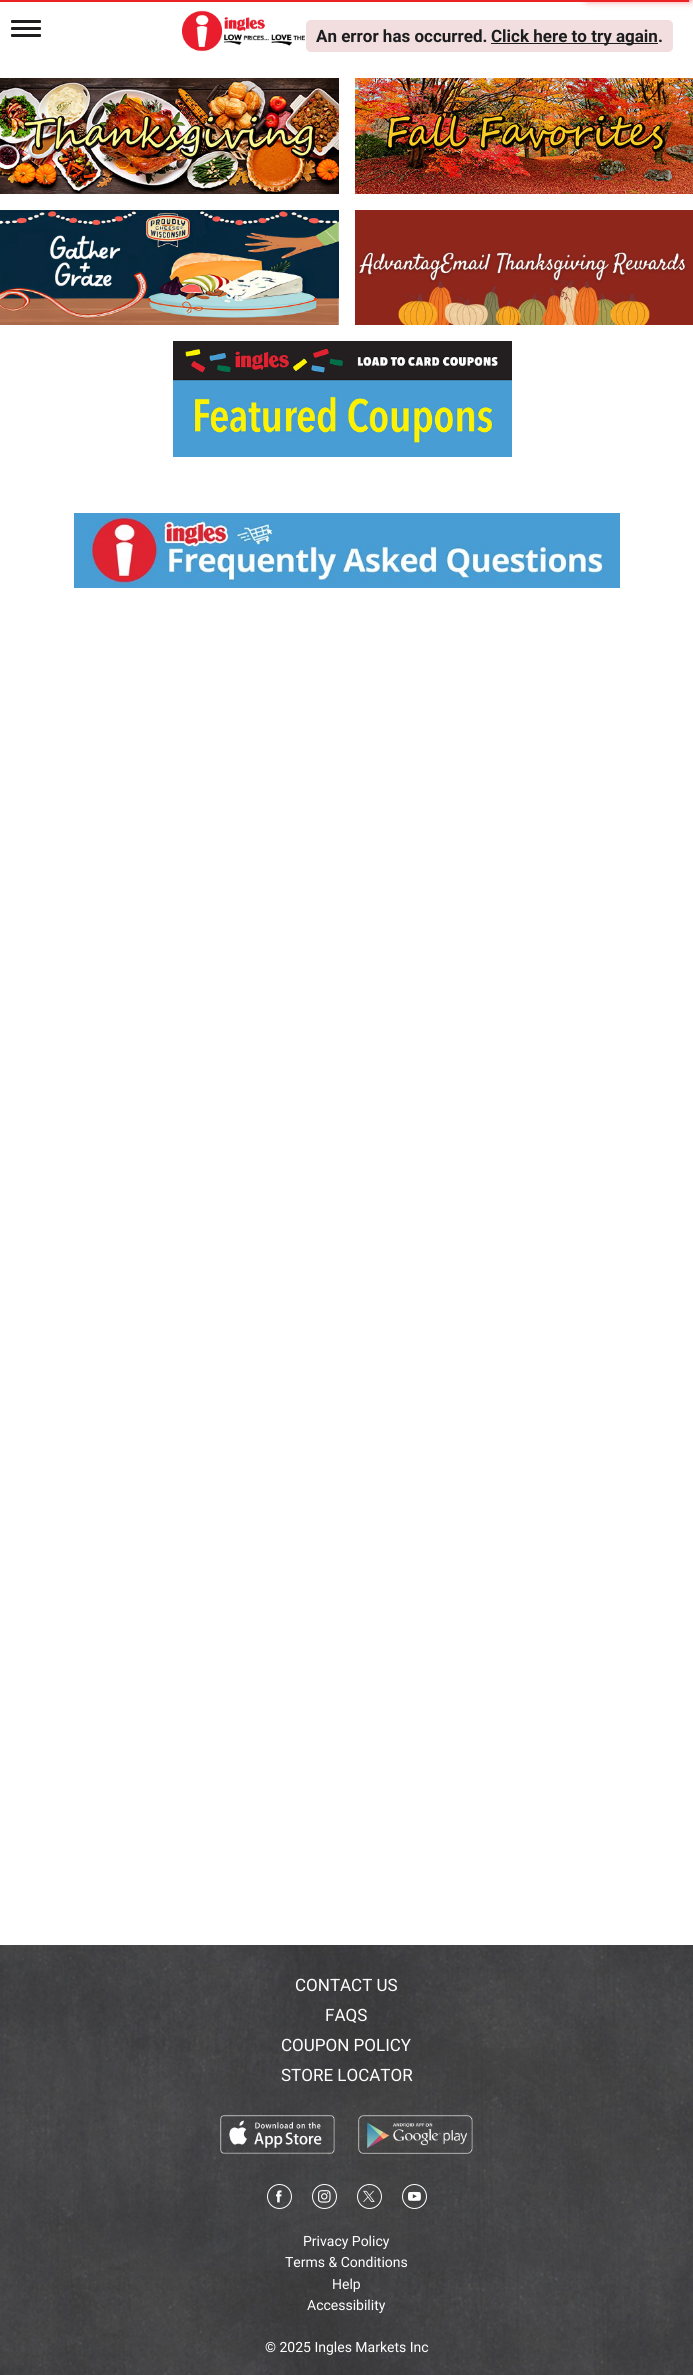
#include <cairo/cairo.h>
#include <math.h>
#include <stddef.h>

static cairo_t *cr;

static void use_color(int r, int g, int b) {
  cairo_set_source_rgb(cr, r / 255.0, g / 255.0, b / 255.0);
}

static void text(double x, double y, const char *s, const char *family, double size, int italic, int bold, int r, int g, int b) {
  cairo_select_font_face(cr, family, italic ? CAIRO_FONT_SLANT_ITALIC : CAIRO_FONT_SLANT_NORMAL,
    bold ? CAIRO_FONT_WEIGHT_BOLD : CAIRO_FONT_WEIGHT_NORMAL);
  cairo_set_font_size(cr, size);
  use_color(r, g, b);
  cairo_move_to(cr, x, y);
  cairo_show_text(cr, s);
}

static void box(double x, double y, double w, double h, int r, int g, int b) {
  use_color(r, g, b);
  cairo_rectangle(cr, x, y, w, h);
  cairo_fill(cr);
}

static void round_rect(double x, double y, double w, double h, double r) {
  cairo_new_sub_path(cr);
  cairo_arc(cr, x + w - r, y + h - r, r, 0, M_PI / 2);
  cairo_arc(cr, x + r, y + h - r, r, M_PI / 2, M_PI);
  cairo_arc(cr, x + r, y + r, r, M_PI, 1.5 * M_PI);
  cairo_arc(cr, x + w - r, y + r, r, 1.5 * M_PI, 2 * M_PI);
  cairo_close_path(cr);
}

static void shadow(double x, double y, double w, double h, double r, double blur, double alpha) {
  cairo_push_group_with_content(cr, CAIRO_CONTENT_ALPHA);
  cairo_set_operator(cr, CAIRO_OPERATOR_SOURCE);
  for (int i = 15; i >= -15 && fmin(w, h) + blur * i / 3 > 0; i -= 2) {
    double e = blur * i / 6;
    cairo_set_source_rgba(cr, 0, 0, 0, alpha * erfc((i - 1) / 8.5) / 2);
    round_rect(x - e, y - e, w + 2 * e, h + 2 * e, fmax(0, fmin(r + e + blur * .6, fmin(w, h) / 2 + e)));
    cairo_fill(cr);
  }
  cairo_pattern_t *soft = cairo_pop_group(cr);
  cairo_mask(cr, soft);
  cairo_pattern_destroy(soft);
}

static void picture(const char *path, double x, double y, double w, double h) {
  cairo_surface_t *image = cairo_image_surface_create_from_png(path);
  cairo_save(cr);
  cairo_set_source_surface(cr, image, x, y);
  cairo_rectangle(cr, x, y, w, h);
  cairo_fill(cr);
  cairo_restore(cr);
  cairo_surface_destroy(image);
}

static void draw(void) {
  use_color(255, 255, 255);
  cairo_paint(cr);
  box(0, 0, 689, 2, 236, 35, 38);
  use_color(236, 35, 38);
  shadow(589, -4, 100, 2, 0, 2.5, 1);
  shadow(589, -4, 100, 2, 0, 5, 1);
  picture("img_01.png", 182, 10, 156, 42);
  use_color(242, 222, 222);
  round_rect(306, 20, 367, 32, 5);
  cairo_fill(cr);
  box(491, 43, 167, 1, 29, 29, 31);
  round_rect(11, 20, 30, 3, 1);
  cairo_fill(cr);
  round_rect(11, 27, 30, 3, 1);
  cairo_fill(cr);
  round_rect(11, 34, 30, 3, 1);
  cairo_fill(cr);
  picture("img_02.png", 0, 78, 339, 116);
  picture("img_03.png", 355, 78, 338, 116);
  picture("img_04.png", 0, 210, 339, 115);
  picture("img_05.png", 355, 210, 338, 115);
  picture("img_06.png", 173, 341, 339, 116);
  picture("img_07.png", 74, 513, 546, 75);
  picture("img_08.png", 0, 1945, 693, 430);
  picture("img_09.png", 220, 2115, 115, 39);
  picture("img_10.png", 358, 2115, 115, 39);
  cairo_arc(cr, 279.5, 2196.5, 12, 0, 2 * M_PI);
  use_color(255, 255, 255);
  cairo_set_line_width(cr, 1);
  cairo_stroke(cr);
  picture("img_11.png", 276, 2190, 6, 13);
  cairo_arc(cr, 324.5, 2196.5, 12, 0, 2 * M_PI);
  cairo_stroke(cr);
  picture("img_12.png", 318, 2190, 13, 13);
  cairo_arc(cr, 369.5, 2196.5, 12, 0, 2 * M_PI);
  cairo_stroke(cr);
  picture("img_13.png", 363, 2190, 12, 12);
  cairo_arc(cr, 414.5, 2196.5, 12, 0, 2 * M_PI);
  cairo_stroke(cr);
  picture("img_14.png", 408, 2191, 13, 10);
  text(316, 42, "An error has occurred.", "Roboto", 17, 0, 1, 29, 29, 31);
  text(491, 42, "Click here to try again.", "Roboto", 17, 0, 1, 29, 29, 31);
  text(295, 1991, "CONTACT US", "Roboto", 17, 0, 0, 255, 255, 255);
  text(325, 2021, "FAQS", "Roboto", 17, 0, 0, 255, 255, 255);
  text(281, 2051, "COUPON POLICY", "Roboto", 17, 0, 0, 255, 255, 255);
  text(281, 2081, "STORE LOCATOR", "Roboto", 17, 0, 0, 255, 255, 255);
  text(303, 2246, "Privacy Policy", "Roboto", 14, 0, 0, 255, 255, 255);
  text(285, 2267, "Terms & Conditions", "Roboto", 14, 0, 0, 255, 255, 255);
  text(332, 2289, "Help", "Roboto", 14, 0, 0, 255, 255, 255);
  text(307, 2310, "Accessibility", "Roboto", 14, 0, 0, 255, 255, 255);
  text(265, 2352, "© 2025 Ingles Markets Inc", "Roboto", 14, 0, 0, 255, 255, 255);
}

int main(void) {
  cairo_surface_t *surface = cairo_image_surface_create(CAIRO_FORMAT_RGB24, 693, 2375);
  cr = cairo_create(surface);
  cairo_font_options_t *options = cairo_font_options_create();
  cairo_font_options_set_hint_metrics(options, CAIRO_HINT_METRICS_OFF);
  cairo_font_options_set_hint_style(options, CAIRO_HINT_STYLE_NONE);
  cairo_set_font_options(cr, options);
  cairo_set_miter_limit(cr, 4);
  draw();
  cairo_surface_write_to_png(surface, "out.png");
  cairo_font_options_destroy(options);
  cairo_destroy(cr);
  cairo_surface_destroy(surface);
  return 0;
}
